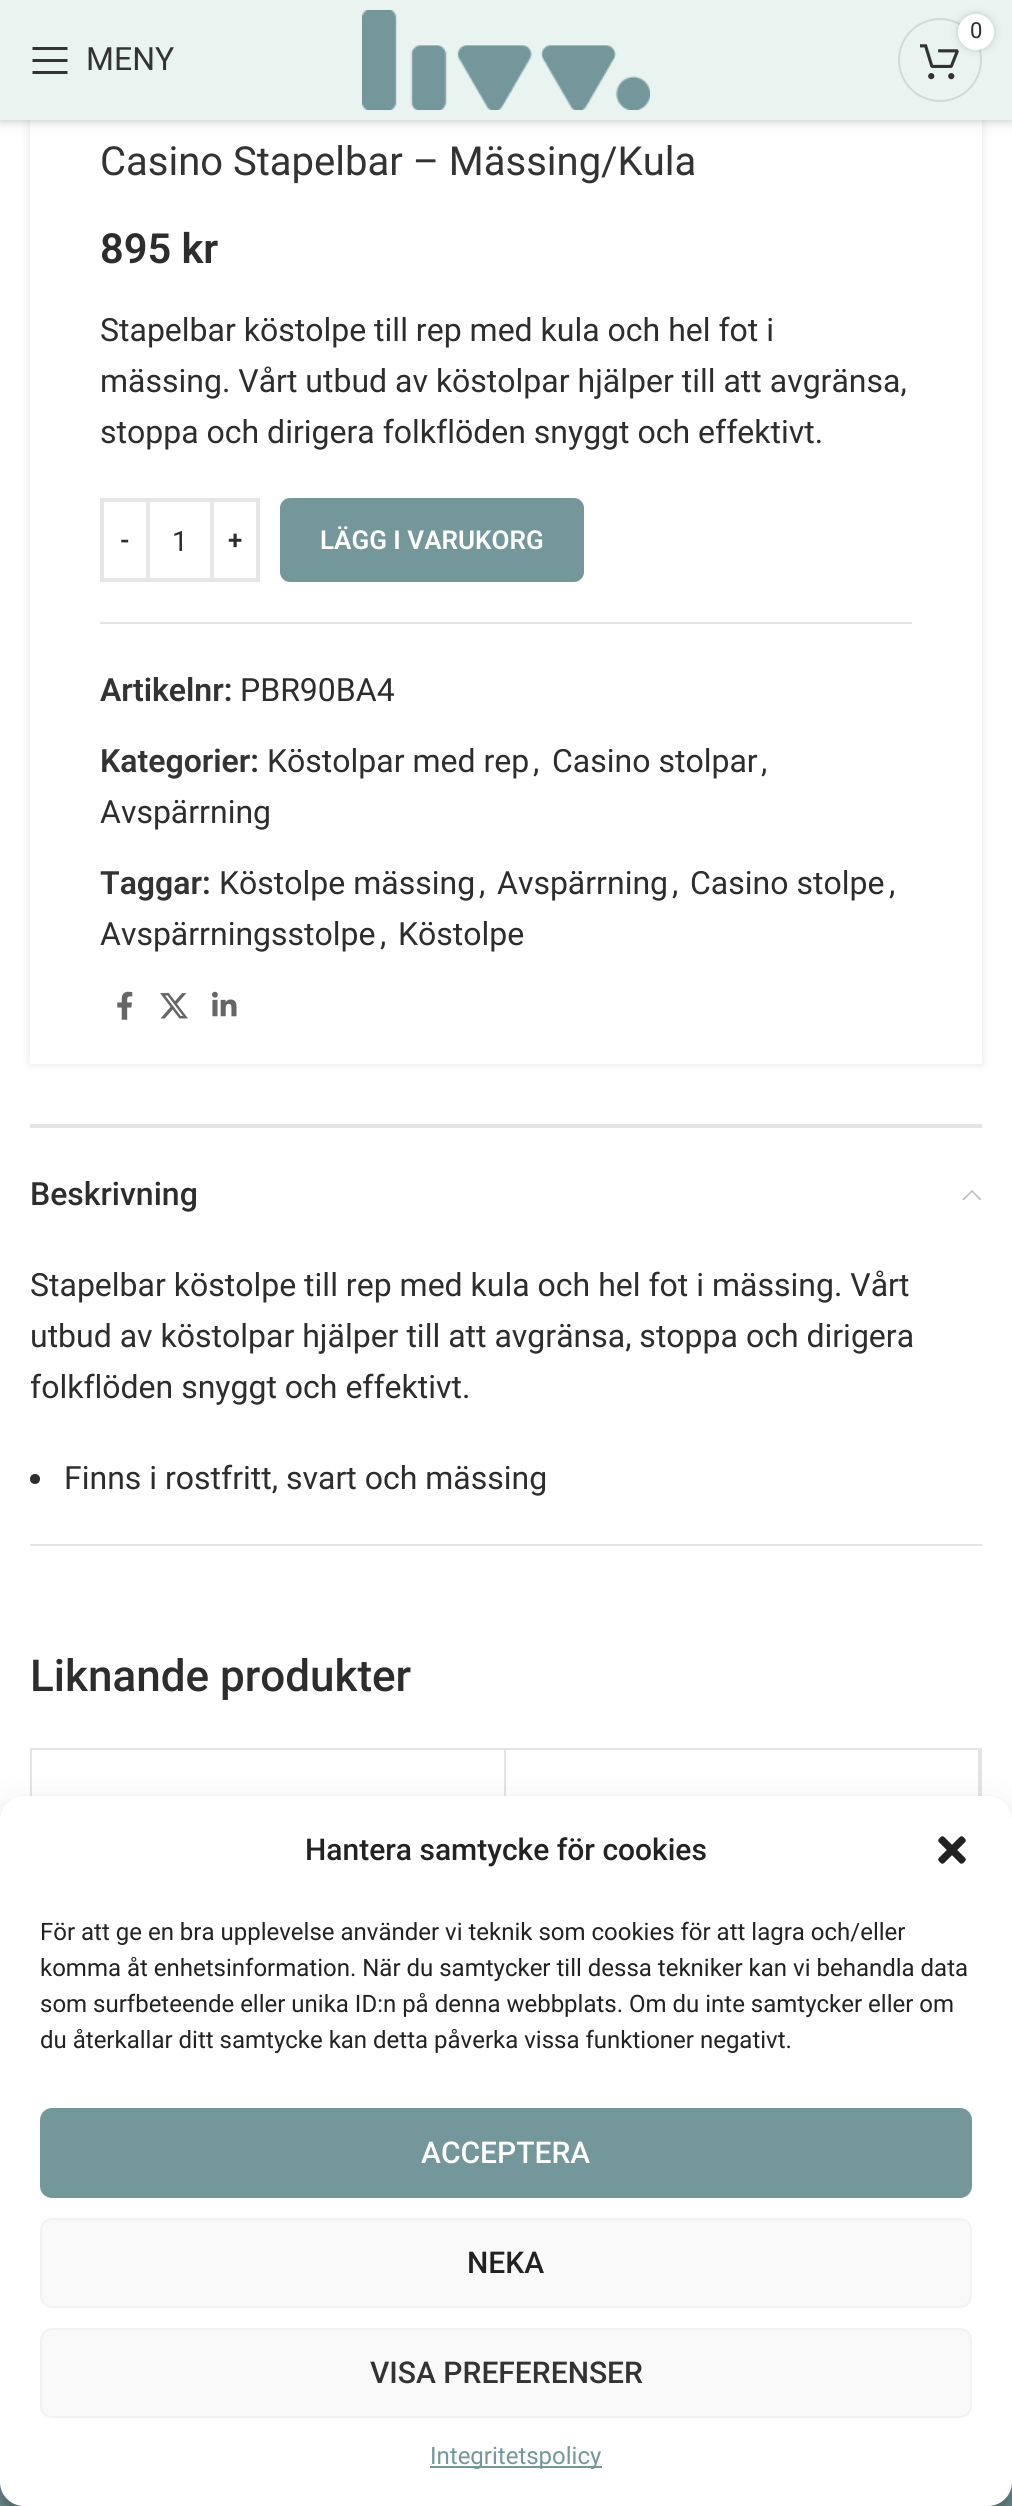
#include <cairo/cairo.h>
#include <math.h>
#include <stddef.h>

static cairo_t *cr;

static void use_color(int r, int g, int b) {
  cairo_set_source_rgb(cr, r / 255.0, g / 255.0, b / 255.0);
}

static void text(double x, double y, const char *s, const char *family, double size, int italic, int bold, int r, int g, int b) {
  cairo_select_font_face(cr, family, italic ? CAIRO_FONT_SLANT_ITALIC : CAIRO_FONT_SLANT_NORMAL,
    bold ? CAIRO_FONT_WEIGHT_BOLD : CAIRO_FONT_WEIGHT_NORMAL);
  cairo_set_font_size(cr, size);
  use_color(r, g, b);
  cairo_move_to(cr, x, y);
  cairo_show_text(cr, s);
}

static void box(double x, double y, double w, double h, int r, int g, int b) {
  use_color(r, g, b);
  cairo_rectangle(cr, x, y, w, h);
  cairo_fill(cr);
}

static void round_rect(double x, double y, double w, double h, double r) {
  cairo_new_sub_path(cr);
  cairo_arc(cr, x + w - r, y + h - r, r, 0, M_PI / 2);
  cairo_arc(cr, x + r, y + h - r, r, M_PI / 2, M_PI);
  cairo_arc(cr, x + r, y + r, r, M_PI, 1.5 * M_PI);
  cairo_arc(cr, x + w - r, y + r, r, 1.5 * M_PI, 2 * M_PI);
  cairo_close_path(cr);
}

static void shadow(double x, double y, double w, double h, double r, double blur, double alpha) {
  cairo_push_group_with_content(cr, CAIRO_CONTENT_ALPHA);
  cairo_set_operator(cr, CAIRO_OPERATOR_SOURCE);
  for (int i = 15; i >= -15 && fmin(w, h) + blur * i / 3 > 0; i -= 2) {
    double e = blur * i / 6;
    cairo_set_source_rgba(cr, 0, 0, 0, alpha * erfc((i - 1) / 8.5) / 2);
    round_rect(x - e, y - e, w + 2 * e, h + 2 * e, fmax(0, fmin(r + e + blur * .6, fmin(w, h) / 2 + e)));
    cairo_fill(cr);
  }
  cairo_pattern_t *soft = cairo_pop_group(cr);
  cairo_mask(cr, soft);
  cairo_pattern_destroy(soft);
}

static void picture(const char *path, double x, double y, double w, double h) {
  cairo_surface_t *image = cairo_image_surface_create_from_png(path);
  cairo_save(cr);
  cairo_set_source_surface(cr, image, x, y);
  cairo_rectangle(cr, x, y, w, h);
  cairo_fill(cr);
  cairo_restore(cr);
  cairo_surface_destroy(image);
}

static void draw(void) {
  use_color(255, 255, 255);
  cairo_paint(cr);
  use_color(0, 0, 0);
  shadow(0, 2, 1012, 120, 0, 3, 0.1);
  shadow(0, 2, 1012, 120, 0, 8, 0.1);
  cairo_save(cr);
  cairo_set_fill_rule(cr, CAIRO_FILL_RULE_EVEN_ODD);
  cairo_new_path(cr);
  cairo_move_to(cr, 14, 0);
  cairo_line_to(cr, 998, 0);
  cairo_line_to(cr, 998, 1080);
  cairo_line_to(cr, 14, 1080);
  cairo_close_path(cr);
  cairo_move_to(cr, 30, -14);
  cairo_line_to(cr, 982, -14);
  cairo_line_to(cr, 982, 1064);
  cairo_line_to(cr, 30, 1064);
  cairo_close_path(cr);
  cairo_clip(cr);
  shadow(30, -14, 952, 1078, 0, 5, 0.1);
  cairo_restore(cr);
  box(0, 0, 1012, 120, 233, 244, 240);
  picture("img_01.png", 362, 10, 288, 100);
  cairo_arc(cr, 940, 60, 41, 0, 2 * M_PI);
  use_color(208, 218, 215);
  cairo_stroke(cr);
  picture("img_02.png", 920, 44, 39, 36);
  use_color(0, 0, 0);
  shadow(958, 14, 36, 36, 18, 4, 0.17);
  use_color(255, 255, 255);
  cairo_arc(cr, 976, 32, 18, 0, 2 * M_PI);
  cairo_fill(cr);
  use_color(51, 51, 51);
  cairo_new_path(cr);
  cairo_move_to(cr, 32.5, 50);
  cairo_line_to(cr, 67.5, 50);
  cairo_line_to(cr, 67.5, 47);
  cairo_line_to(cr, 32.5, 47);
  cairo_close_path(cr);
  cairo_move_to(cr, 32.5, 62);
  cairo_line_to(cr, 67.5, 62);
  cairo_line_to(cr, 67.5, 59);
  cairo_line_to(cr, 32.5, 59);
  cairo_close_path(cr);
  cairo_move_to(cr, 32.5, 74);
  cairo_line_to(cr, 67.5, 74);
  cairo_line_to(cr, 67.5, 71);
  cairo_line_to(cr, 32.5, 71);
  cairo_close_path(cr);
  cairo_fill(cr);
  cairo_rectangle(cr, 102, 500, 46, 80);
  use_color(230, 230, 230);
  cairo_set_line_width(cr, 4);
  cairo_stroke(cr);
  box(150, 498, 60, 4, 230, 230, 230);
  box(150, 578, 60, 4, 230, 230, 230);
  cairo_rectangle(cr, 212, 500, 46, 80);
  cairo_stroke(cr);
  use_color(115, 151, 154);
  round_rect(280, 498, 304, 84, 10);
  cairo_fill(cr);
  box(100, 622, 812, 2, 228, 228, 228);
  picture("img_03.png", 117, 991, 16, 29);
  picture("img_04.png", 160, 993, 28, 26);
  picture("img_05.png", 212, 991, 25, 26);
  box(30, 1124, 952, 4, 228, 228, 228);
  box(30, 1544, 952, 2, 228, 228, 228);
  use_color(187, 187, 187);
  cairo_new_path(cr);
  cairo_move_to(cr, 963.5, 1200.5);
  cairo_line_to(cr, 972, 1192);
  cairo_line_to(cr, 980, 1200.5);
  cairo_line_to(cr, 981, 1199);
  cairo_line_to(cr, 972, 1190);
  cairo_line_to(cr, 962.5, 1199);
  cairo_close_path(cr);
  cairo_fill(cr);
  use_color(45, 45, 45);
  cairo_arc(cr, 35, 1479, 5, 0, 2 * M_PI);
  cairo_fill(cr);
  cairo_rectangle(cr, 31, 1749, 950, 612);
  use_color(228, 228, 228);
  cairo_set_line_width(cr, 2);
  cairo_stroke(cr);
  box(504, 1750, 2, 46, 228, 228, 228);
  box(978, 1750, 2, 46, 228, 228, 228);
  box(0, 2482, 1012, 24, 115, 151, 154);
  use_color(0, 0, 0);
  shadow(0, 1808, 1012, 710, 24, 6, 0.23);
  shadow(0, 1816, 1012, 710, 24, 20, 0.19);
  use_color(255, 255, 255);
  round_rect(0, 1796, 1012, 710, 24);
  cairo_fill(cr);
  picture("img_06.png", 938, 1836, 28, 28);
  use_color(115, 151, 154);
  round_rect(41, 2109, 930, 88, 11);
  cairo_fill_preserve(cr);
  cairo_stroke(cr);
  use_color(249, 249, 249);
  round_rect(41, 2219, 930, 88, 11);
  cairo_fill_preserve(cr);
  use_color(242, 242, 242);
  cairo_stroke(cr);
  use_color(249, 249, 249);
  round_rect(41, 2329, 930, 88, 11);
  cairo_fill_preserve(cr);
  use_color(242, 242, 242);
  cairo_stroke(cr);
  box(430, 2466, 172, 2, 115, 151, 154);
  text(970, 38, "0", "Roboto", 22, 0, 0, 45, 45, 45);
  text(86, 70, "MENY", "Roboto", 32, 0, 0, 51, 51, 51);
  text(100, 175, "Casino Stapelbar – Mässing/Kula", "Roboto", 40, 0, 0, 51, 51, 51);
  text(100, 263, "895 kr", "Roboto SemiBold", 41.5, 0, 0, 45, 45, 45);
  text(100, 341, "Stapelbar köstolpe till rep med kula och hel fot i", "Roboto", 32, 0, 0, 45, 45, 45);
  text(100, 392, "mässing. Vårt utbud av köstolpar hjälper till att avgränsa,", "Roboto", 32, 0, 0, 45, 45, 45);
  text(100, 443, "stoppa och dirigera folkflöden snyggt och effektivt.", "Roboto", 32, 0, 0, 45, 45, 45);
  text(120, 549, "-", "Roboto SemiBold", 26, 0, 0, 45, 45, 45);
  text(172, 551, "1", "Roboto", 28, 0, 0, 45, 45, 45);
  text(228, 549, "+", "Roboto SemiBold", 26, 0, 0, 45, 45, 45);
  text(320, 549, "LÄGG I VARUKORG", "Roboto SemiBold", 26, 0, 0, 255, 255, 255);
  text(100, 701, "Artikelnr:", "Roboto SemiBold", 32, 0, 0, 51, 51, 51);
  text(240, 701, "PBR90BA4", "Roboto", 32, 0, 0, 45, 45, 45);
  text(100, 772, "Kategorier:", "Roboto SemiBold", 32, 0, 0, 51, 51, 51);
  text(267, 772, "Köstolpar med rep", "Roboto", 32, 0, 0, 45, 45, 45);
  text(533, 772, ",", "Roboto", 32, 0, 0, 45, 45, 45);
  text(552, 772, "Casino stolpar", "Roboto", 32, 0, 0, 45, 45, 45);
  text(761, 772, ",", "Roboto", 32, 0, 0, 45, 45, 45);
  text(100, 823, "Avspärrning", "Roboto", 32, 0, 0, 45, 45, 45);
  text(100, 894, "Taggar:", "Roboto SemiBold", 32, 0, 0, 51, 51, 51);
  text(219, 894, "Köstolpe mässing", "Roboto", 32, 0, 0, 45, 45, 45);
  text(479, 894, ",", "Roboto", 32, 0, 0, 45, 45, 45);
  text(497, 894, "Avspärrning", "Roboto", 32, 0, 0, 45, 45, 45);
  text(672, 894, ",", "Roboto", 32, 0, 0, 45, 45, 45);
  text(690, 894, "Casino stolpe", "Roboto", 32, 0, 0, 45, 45, 45);
  text(889, 894, ",", "Roboto", 32, 0, 0, 45, 45, 45);
  text(100, 945, "Avspärrningsstolpe", "Roboto", 32, 0, 0, 45, 45, 45);
  text(380, 945, ",", "Roboto", 32, 0, 0, 45, 45, 45);
  text(398, 945, "Köstolpe", "Roboto", 32, 0, 0, 45, 45, 45);
  text(30, 1205, "Beskrivning", "Roboto Medium", 32, 0, 0, 45, 45, 45);
  text(30, 1296, "Stapelbar köstolpe till rep med kula och hel fot i mässing. Vårt", "Roboto", 32, 0, 0, 45, 45, 45);
  text(30, 1347, "utbud av köstolpar hjälper till att avgränsa, stoppa och dirigera", "Roboto", 32, 0, 0, 45, 45, 45);
  text(30, 1398, "folkflöden snyggt och effektivt.", "Roboto", 32, 0, 0, 45, 45, 45);
  text(64, 1489, "Finns i rostfritt, svart och mässing", "Roboto", 32, 0, 0, 45, 45, 45);
  text(30, 1691, "Liknande produkter", "Roboto Medium", 44, 0, 0, 45, 45, 45);
  text(305, 1860, "Hantera samtycke för cookies", "Roboto Medium", 30, 0, 0, 34, 34, 34);
  text(40, 1940, "För att ge en bra upplevelse använder vi teknik som cookies för att lagra och/eller", "Roboto", 24, 0, 0, 34, 34, 34);
  text(40, 1976, "komma åt enhetsinformation. När du samtycker till dessa tekniker kan vi behandla data", "Roboto", 24, 0, 0, 34, 34, 34);
  text(40, 2012, "som surfbeteende eller unika ID:n på denna webbplats. Om du inte samtycker eller om", "Roboto", 24, 0, 0, 34, 34, 34);
  text(40, 2048, "du återkallar ditt samtycke kan detta påverka vissa funktioner negativt.", "Roboto", 24, 0, 0, 34, 34, 34);
  text(421, 2163, "ACCEPTERA", "Roboto Medium", 30, 0, 0, 255, 255, 255);
  text(467, 2273, "NEKA", "Roboto Medium", 30, 0, 0, 34, 34, 34);
  text(370, 2383, "VISA PREFERENSER", "Roboto Medium", 30, 0, 0, 51, 51, 51);
  text(430, 2464, "Integritetspolicy", "Roboto", 24, 0, 0, 115, 151, 154);
}

int main(void) {
  cairo_surface_t *surface = cairo_image_surface_create(CAIRO_FORMAT_RGB24, 1012, 2506);
  cr = cairo_create(surface);
  cairo_font_options_t *options = cairo_font_options_create();
  cairo_font_options_set_hint_metrics(options, CAIRO_HINT_METRICS_OFF);
  cairo_font_options_set_hint_style(options, CAIRO_HINT_STYLE_NONE);
  cairo_set_font_options(cr, options);
  cairo_set_miter_limit(cr, 4);
  draw();
  cairo_surface_write_to_png(surface, "out.png");
  cairo_font_options_destroy(options);
  cairo_destroy(cr);
  cairo_surface_destroy(surface);
  return 0;
}
